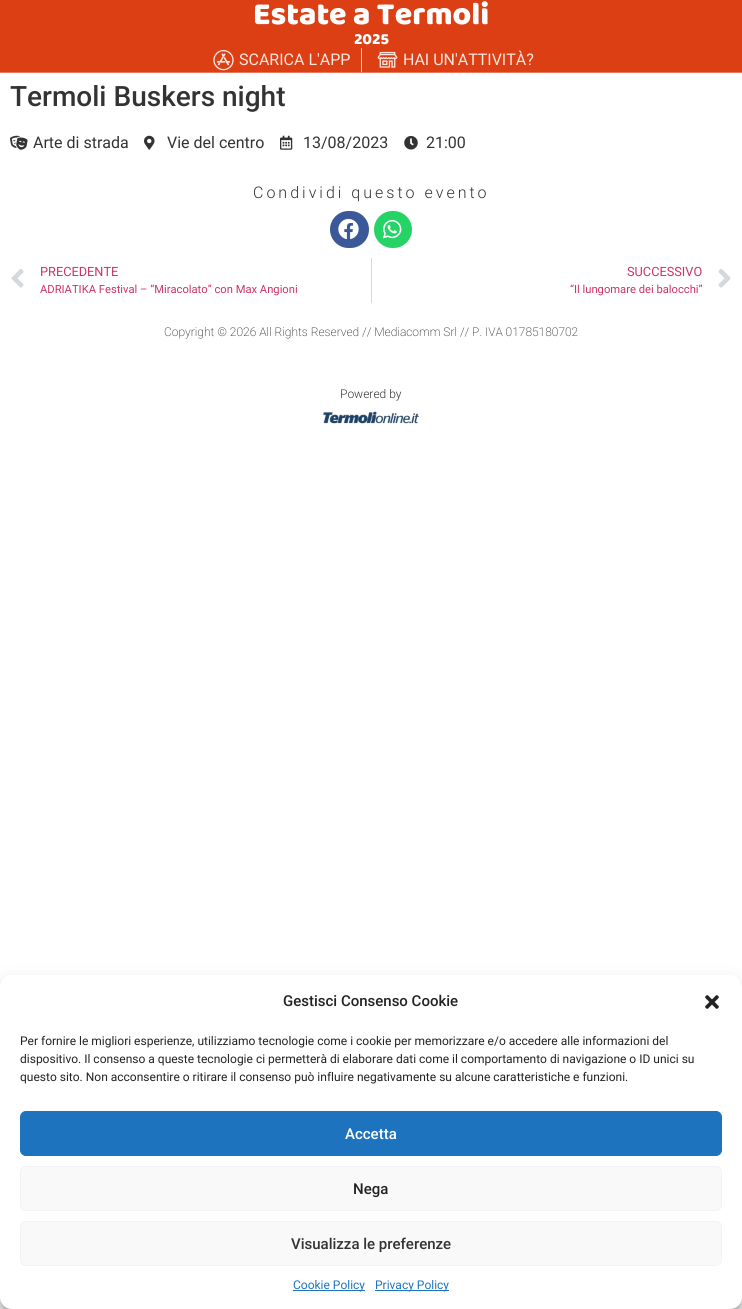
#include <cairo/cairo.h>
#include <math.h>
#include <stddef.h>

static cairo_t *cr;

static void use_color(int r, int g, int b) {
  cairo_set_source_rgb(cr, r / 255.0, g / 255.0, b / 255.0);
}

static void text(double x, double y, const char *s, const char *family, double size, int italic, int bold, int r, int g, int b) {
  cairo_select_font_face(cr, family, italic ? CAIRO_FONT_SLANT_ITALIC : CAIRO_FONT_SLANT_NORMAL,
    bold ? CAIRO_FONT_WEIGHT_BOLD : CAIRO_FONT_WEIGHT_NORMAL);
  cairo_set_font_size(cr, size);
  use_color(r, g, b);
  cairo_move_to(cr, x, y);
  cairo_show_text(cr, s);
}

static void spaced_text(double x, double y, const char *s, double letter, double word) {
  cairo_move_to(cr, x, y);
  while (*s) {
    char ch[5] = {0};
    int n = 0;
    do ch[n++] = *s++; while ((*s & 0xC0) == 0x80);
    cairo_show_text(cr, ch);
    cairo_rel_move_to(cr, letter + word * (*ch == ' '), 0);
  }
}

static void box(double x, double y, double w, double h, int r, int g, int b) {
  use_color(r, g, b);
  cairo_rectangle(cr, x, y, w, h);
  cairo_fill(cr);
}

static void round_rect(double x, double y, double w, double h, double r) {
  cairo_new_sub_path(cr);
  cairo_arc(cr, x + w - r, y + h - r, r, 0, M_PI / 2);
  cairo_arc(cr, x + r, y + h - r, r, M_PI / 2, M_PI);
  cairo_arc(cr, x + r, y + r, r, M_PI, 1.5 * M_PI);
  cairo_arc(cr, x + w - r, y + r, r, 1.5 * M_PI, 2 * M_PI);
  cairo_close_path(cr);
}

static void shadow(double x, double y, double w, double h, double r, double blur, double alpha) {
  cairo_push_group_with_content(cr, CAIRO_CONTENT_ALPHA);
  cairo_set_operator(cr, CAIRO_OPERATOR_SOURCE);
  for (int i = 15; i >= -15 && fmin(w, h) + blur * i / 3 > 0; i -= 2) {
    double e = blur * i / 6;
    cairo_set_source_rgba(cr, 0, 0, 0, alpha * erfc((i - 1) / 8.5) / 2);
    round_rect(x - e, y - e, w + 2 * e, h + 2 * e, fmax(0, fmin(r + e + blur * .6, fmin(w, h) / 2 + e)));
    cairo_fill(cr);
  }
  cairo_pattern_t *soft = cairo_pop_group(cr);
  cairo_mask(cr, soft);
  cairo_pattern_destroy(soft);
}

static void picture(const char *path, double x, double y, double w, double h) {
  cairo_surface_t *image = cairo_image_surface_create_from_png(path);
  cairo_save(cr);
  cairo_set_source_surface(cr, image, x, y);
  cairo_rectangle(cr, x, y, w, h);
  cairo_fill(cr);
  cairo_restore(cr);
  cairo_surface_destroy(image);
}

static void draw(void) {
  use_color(255, 255, 255);
  cairo_paint(cr);
  box(0, 0, 742, 72, 221, 63, 21);
  box(0, 72, 742, 1, 231, 119, 89);
  picture("img_01.png", 213, 49, 21, 22);
  box(361, 48, 1, 24, 221, 221, 221);
  picture("img_02.png", 377, 51, 21, 17);
  picture("img_03.png", 10, 135, 18, 15);
  picture("img_04.png", 144, 135, 11, 15);
  picture("img_05.png", 280, 135, 13, 15);
  picture("img_06.png", 404, 136, 14, 14);
  use_color(59, 89, 152);
  round_rect(330, 211, 39, 37, 18.5);
  cairo_fill(cr);
  picture("img_07.png", 338, 218, 21, 22);
  use_color(37, 211, 102);
  round_rect(374, 211, 38, 37, 18.5);
  cairo_fill(cr);
  picture("img_08.png", 383, 219, 19, 20);
  picture("img_09.png", 11, 269, 13, 19);
  box(371, 258, 1, 45, 213, 216, 220);
  picture("img_10.png", 718, 269, 13, 19);
  picture("img_11.png", 323, 411, 96, 13);
  use_color(0, 0, 0);
  shadow(0, 981, 742, 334, 12, 3, 0.23);
  shadow(0, 985, 742, 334, 12, 10, 0.19);
  use_color(255, 255, 255);
  round_rect(0, 975, 742, 334, 12);
  cairo_fill(cr);
  picture("img_12.png", 705, 995, 14, 14);
  use_color(30, 115, 190);
  round_rect(20.5, 1111.5, 701, 44, 5.5);
  cairo_fill_preserve(cr);
  cairo_set_line_width(cr, 1);
  cairo_stroke(cr);
  use_color(249, 249, 249);
  round_rect(20.5, 1166.5, 701, 44, 5.5);
  cairo_fill_preserve(cr);
  use_color(242, 242, 242);
  cairo_stroke(cr);
  use_color(249, 249, 249);
  round_rect(20.5, 1221.5, 701, 44, 5.5);
  cairo_fill_preserve(cr);
  use_color(242, 242, 242);
  cairo_stroke(cr);
  box(293, 1290, 72, 1, 30, 115, 190);
  box(375, 1290, 74, 1, 30, 115, 190);
  text(253, 24, "Estate a Termoli", "Baloo 2 ExtraBold", 32, 0, 0, 255, 255, 255);
  text(354, 44, "2025", "Baloo 2 ExtraBold", 16, 0, 0, 255, 255, 255);
  text(239, 65, "SCARICA L'APP", "Roboto", 16, 0, 0, 255, 230, 223);
  text(403, 65, "HAI UN'ATTIVITÀ?", "Roboto", 16, 0, 0, 255, 230, 223);
  text(10, 106, "Termoli Buskers night", "Roboto Medium", 28, 0, 0, 51, 51, 51);
  text(33, 148, "Arte di strada", "Roboto", 16, 0, 0, 51, 51, 51);
  text(167, 148, "Vie del centro", "Roboto", 16, 0, 0, 51, 51, 51);
  text(303, 148, "13/08/2023", "Roboto", 16, 0, 0, 51, 51, 51);
  text(426, 148, "21:00", "Roboto", 16, 0, 0, 51, 51, 51);
  cairo_select_font_face(cr, "Roboto Light", CAIRO_FONT_SLANT_NORMAL, CAIRO_FONT_WEIGHT_NORMAL);
  spaced_text(253, 198, "Condividi questo evento", 3, 0);
  text(40, 276, "PRECEDENTE", "Roboto", 12.75, 0, 0, 204, 51, 102);
  text(40, 293, "ADRIATIKA Festival – “Miracolato” con Max Angioni", "Roboto", 11.2, 0, 0, 204, 51, 102);
  text(627, 276, "SUCCESSIVO", "Roboto", 12.75, 0, 0, 204, 51, 102);
  text(570, 293, "“Il lungomare dei balocchi”", "Roboto", 11.2, 0, 0, 204, 51, 102);
  text(164, 336, "Copyright © 2026 All Rights Reserved // Mediacomm Srl // P. IVA 01785180702", "Roboto ExtraLight", 12, 0, 0, 51, 51, 51);
  text(340, 398, "Powered by", "Roboto Light", 12, 0, 0, 51, 51, 51);
  text(283, 1006, "Gestisci Consenso Cookie", "Roboto Medium", 15, 0, 0, 34, 34, 34);
  text(20, 1045, "Per fornire le migliori esperienze, utilizziamo tecnologie come i cookie per memorizzare e/o accedere alle informazioni del", "Roboto", 12, 0, 0, 34, 34, 34);
  text(20, 1063, "dispositivo. Il consenso a queste tecnologie ci permetterà di elaborare dati come il comportamento di navigazione o ID unici su", "Roboto", 12, 0, 0, 34, 34, 34);
  text(20, 1081, "questo sito. Non acconsentire o ritirare il consenso può influire negativamente su alcune caratteristiche e funzioni.", "Roboto", 12, 0, 0, 34, 34, 34);
  text(345, 1139, "Accetta", "Roboto Medium", 15, 0, 0, 255, 255, 255);
  text(353, 1194, "Nega", "Roboto Medium", 15, 0, 0, 34, 34, 34);
  text(291, 1249, "Visualizza le preferenze", "Roboto Medium", 15, 0, 0, 51, 51, 51);
  text(293, 1289, "Cookie Policy", "Roboto", 12, 0, 0, 30, 115, 190);
  text(375, 1289, "Privacy Policy", "Roboto", 12, 0, 0, 30, 115, 190);
}

int main(void) {
  cairo_surface_t *surface = cairo_image_surface_create(CAIRO_FORMAT_RGB24, 742, 1309);
  cr = cairo_create(surface);
  cairo_font_options_t *options = cairo_font_options_create();
  cairo_font_options_set_hint_metrics(options, CAIRO_HINT_METRICS_OFF);
  cairo_font_options_set_hint_style(options, CAIRO_HINT_STYLE_NONE);
  cairo_set_font_options(cr, options);
  cairo_set_miter_limit(cr, 4);
  draw();
  cairo_surface_write_to_png(surface, "out.png");
  cairo_font_options_destroy(options);
  cairo_destroy(cr);
  cairo_surface_destroy(surface);
  return 0;
}
